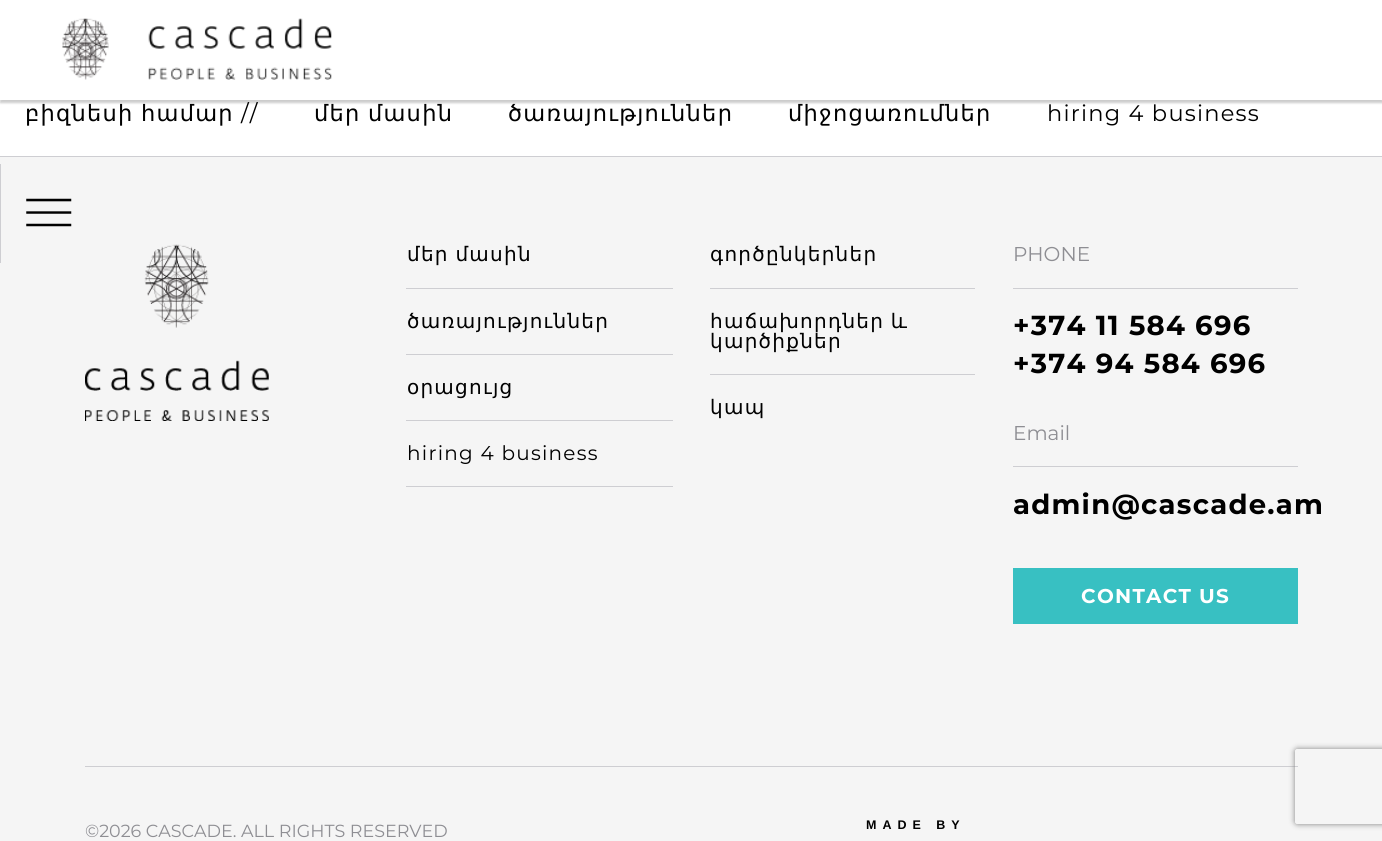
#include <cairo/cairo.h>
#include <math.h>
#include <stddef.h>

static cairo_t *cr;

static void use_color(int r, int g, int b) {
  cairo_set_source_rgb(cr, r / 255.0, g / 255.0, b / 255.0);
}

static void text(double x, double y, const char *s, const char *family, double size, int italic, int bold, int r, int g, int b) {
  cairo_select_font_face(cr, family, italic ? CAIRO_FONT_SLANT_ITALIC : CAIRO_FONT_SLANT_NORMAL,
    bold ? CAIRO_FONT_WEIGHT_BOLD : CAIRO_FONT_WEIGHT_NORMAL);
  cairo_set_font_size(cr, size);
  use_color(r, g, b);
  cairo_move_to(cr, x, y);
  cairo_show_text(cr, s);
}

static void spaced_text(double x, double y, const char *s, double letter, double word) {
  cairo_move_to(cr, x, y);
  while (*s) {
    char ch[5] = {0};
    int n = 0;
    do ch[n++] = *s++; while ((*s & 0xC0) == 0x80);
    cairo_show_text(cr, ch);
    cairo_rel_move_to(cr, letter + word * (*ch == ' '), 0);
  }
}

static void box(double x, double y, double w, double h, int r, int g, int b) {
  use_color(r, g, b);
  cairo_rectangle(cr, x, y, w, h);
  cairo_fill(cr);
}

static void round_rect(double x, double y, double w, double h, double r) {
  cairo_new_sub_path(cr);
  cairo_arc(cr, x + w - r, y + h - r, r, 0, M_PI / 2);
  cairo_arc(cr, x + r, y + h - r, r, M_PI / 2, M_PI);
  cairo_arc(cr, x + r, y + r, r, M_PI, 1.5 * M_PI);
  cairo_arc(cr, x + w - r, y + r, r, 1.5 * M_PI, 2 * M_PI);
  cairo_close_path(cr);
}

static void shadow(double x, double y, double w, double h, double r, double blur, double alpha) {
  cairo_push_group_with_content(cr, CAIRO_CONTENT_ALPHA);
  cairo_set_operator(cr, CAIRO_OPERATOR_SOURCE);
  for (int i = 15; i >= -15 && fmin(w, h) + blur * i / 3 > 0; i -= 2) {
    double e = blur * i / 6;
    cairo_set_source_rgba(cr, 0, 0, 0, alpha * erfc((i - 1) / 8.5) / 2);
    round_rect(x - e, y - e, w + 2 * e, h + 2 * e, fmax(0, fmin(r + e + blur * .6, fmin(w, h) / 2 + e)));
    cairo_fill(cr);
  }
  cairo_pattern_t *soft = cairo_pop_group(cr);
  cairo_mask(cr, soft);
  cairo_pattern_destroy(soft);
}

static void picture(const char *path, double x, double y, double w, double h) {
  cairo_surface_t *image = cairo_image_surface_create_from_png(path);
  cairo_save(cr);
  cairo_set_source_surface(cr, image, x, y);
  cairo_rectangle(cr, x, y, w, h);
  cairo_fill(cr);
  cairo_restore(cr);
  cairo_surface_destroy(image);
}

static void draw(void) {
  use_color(255, 255, 255);
  cairo_paint(cr);
  use_color(0, 0, 0);
  shadow(0, 3, 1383, 100, 0, 1, 0.2);
  box(0, 1, 1382, 99, 255, 255, 255);
  picture("img_01.png", 62, 18, 270, 62);
  box(0, 157, 1382, 684, 245, 245, 245);
  box(0, 164, 1, 99, 206, 206, 210);
  picture("img_02.png", 26, 198, 46, 29);
  box(0, 156, 1382, 1, 206, 206, 210);
  picture("img_03.png", 85, 244, 184, 177);
  box(406, 288, 267, 1, 206, 206, 210);
  box(406, 354, 267, 1, 206, 206, 210);
  box(406, 420, 267, 1, 206, 206, 210);
  box(406, 486, 267, 1, 206, 206, 210);
  box(710, 288, 265, 1, 206, 206, 210);
  box(710, 374, 265, 1, 206, 206, 210);
  box(1013, 288, 285, 1, 206, 206, 210);
  box(1013, 466, 285, 1, 206, 206, 210);
  box(1013, 568, 285, 56, 56, 192, 194);
  box(85, 766, 1213, 1, 206, 206, 210);
  cairo_save(cr);
  cairo_set_fill_rule(cr, CAIRO_FILL_RULE_EVEN_ODD);
  cairo_new_path(cr);
  cairo_move_to(cr, 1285, 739);
  cairo_line_to(cr, 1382, 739);
  cairo_line_to(cr, 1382, 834);
  cairo_line_to(cr, 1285, 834);
  cairo_close_path(cr);
  cairo_move_to(cr, 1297.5, 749);
  cairo_line_to(cr, 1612.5, 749);
  cairo_curve_to(cr, 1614, 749, 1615, 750, 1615, 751.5);
  cairo_line_to(cr, 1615, 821.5);
  cairo_curve_to(cr, 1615, 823, 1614, 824, 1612.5, 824);
  cairo_line_to(cr, 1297.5, 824);
  cairo_curve_to(cr, 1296, 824, 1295, 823, 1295, 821.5);
  cairo_line_to(cr, 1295, 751.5);
  cairo_curve_to(cr, 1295, 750, 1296, 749, 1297.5, 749);
  cairo_close_path(cr);
  cairo_clip(cr);
  use_color(128, 128, 128);
  shadow(1295, 749, 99, 75, 2.5, 3, 1);
  cairo_restore(cr);
  cairo_select_font_face(cr, "DejaVu Sans", CAIRO_FONT_SLANT_NORMAL, CAIRO_FONT_WEIGHT_NORMAL);
  cairo_set_font_size(cr, 22.5);
  use_color(0, 0, 0);
  spaced_text(25, 121, "բիզնեսի համար", 1.25, -1);
  cairo_select_font_face(cr, "Montserrat", CAIRO_FONT_SLANT_NORMAL, CAIRO_FONT_WEIGHT_NORMAL);
  spaced_text(241, 121, "//", 1.25, 0);
  cairo_select_font_face(cr, "DejaVu Sans", CAIRO_FONT_SLANT_NORMAL, CAIRO_FONT_WEIGHT_NORMAL);
  spaced_text(314, 121, "մեր մասին", 1.25, -1);
  spaced_text(508, 121, "ծառայություններ", 1.25, 0);
  spaced_text(788, 121, "միջոցառումներ", 1.25, 0);
  cairo_select_font_face(cr, "Montserrat", CAIRO_FONT_SLANT_NORMAL, CAIRO_FONT_WEIGHT_NORMAL);
  spaced_text(1047, 121, "hiring 4 business", 1.25, 0);
  cairo_select_font_face(cr, "DejaVu Sans", CAIRO_FONT_SLANT_NORMAL, CAIRO_FONT_WEIGHT_NORMAL);
  cairo_set_font_size(cr, 20);
  spaced_text(407, 261, "մեր մասին", 1.25, -1);
  spaced_text(407, 328, "ծառայություններ", 1.25, 0);
  spaced_text(407, 394, "օրացույց", 1.25, 0);
  cairo_select_font_face(cr, "Montserrat", CAIRO_FONT_SLANT_NORMAL, CAIRO_FONT_WEIGHT_NORMAL);
  spaced_text(407, 460, "hiring 4 business", 1.25, 0);
  cairo_select_font_face(cr, "DejaVu Sans", CAIRO_FONT_SLANT_NORMAL, CAIRO_FONT_WEIGHT_NORMAL);
  spaced_text(710, 261, "գործընկերներ", 1.25, 0);
  spaced_text(710, 328, "հաճախորդներ և", 1.25, -1);
  spaced_text(710, 348, "կարծիքներ", 1.25, 0);
  spaced_text(710, 414, "կապ", 1.25, 0);
  text(1013, 261, "PHONE", "Montserrat", 20, 0, 0, 142, 142, 147);
  cairo_select_font_face(cr, "Montserrat", CAIRO_FONT_SLANT_NORMAL, CAIRO_FONT_WEIGHT_BOLD);
  cairo_set_font_size(cr, 27.5);
  use_color(0, 0, 0);
  spaced_text(1013, 335, "+374 11 584 696", 1.25, 0);
  spaced_text(1013, 373, "+374 94 584 696", 1.25, 0);
  text(1013, 440, "Email", "Montserrat", 20, 0, 0, 142, 142, 147);
  cairo_select_font_face(cr, "Montserrat", CAIRO_FONT_SLANT_NORMAL, CAIRO_FONT_WEIGHT_BOLD);
  cairo_set_font_size(cr, 27.5);
  use_color(0, 0, 0);
  spaced_text(1013, 514, "admin@cascade.am", 1.25, 0);
  cairo_select_font_face(cr, "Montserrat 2", CAIRO_FONT_SLANT_NORMAL, CAIRO_FONT_WEIGHT_BOLD);
  cairo_set_font_size(cr, 20);
  use_color(255, 255, 255);
  spaced_text(1081, 603, "CONTACT US", 1.25, 0);
  text(85, 837, "©2026 CASCADE. ALL RIGHTS RESERVED", "Montserrat", 17.5, 0, 0, 142, 142, 147);
  cairo_select_font_face(cr, "Liberation Sans", CAIRO_FONT_SLANT_NORMAL, CAIRO_FONT_WEIGHT_BOLD);
  cairo_set_font_size(cr, 12.5);
  use_color(0, 0, 0);
  spaced_text(866, 829, "MADE BY", 6, 0);
}

int main(void) {
  cairo_surface_t *surface = cairo_image_surface_create(CAIRO_FORMAT_RGB24, 1382, 841);
  cr = cairo_create(surface);
  cairo_font_options_t *options = cairo_font_options_create();
  cairo_font_options_set_hint_metrics(options, CAIRO_HINT_METRICS_OFF);
  cairo_font_options_set_hint_style(options, CAIRO_HINT_STYLE_NONE);
  cairo_set_font_options(cr, options);
  cairo_set_miter_limit(cr, 4);
  draw();
  cairo_surface_write_to_png(surface, "out.png");
  cairo_font_options_destroy(options);
  cairo_destroy(cr);
  cairo_surface_destroy(surface);
  return 0;
}
